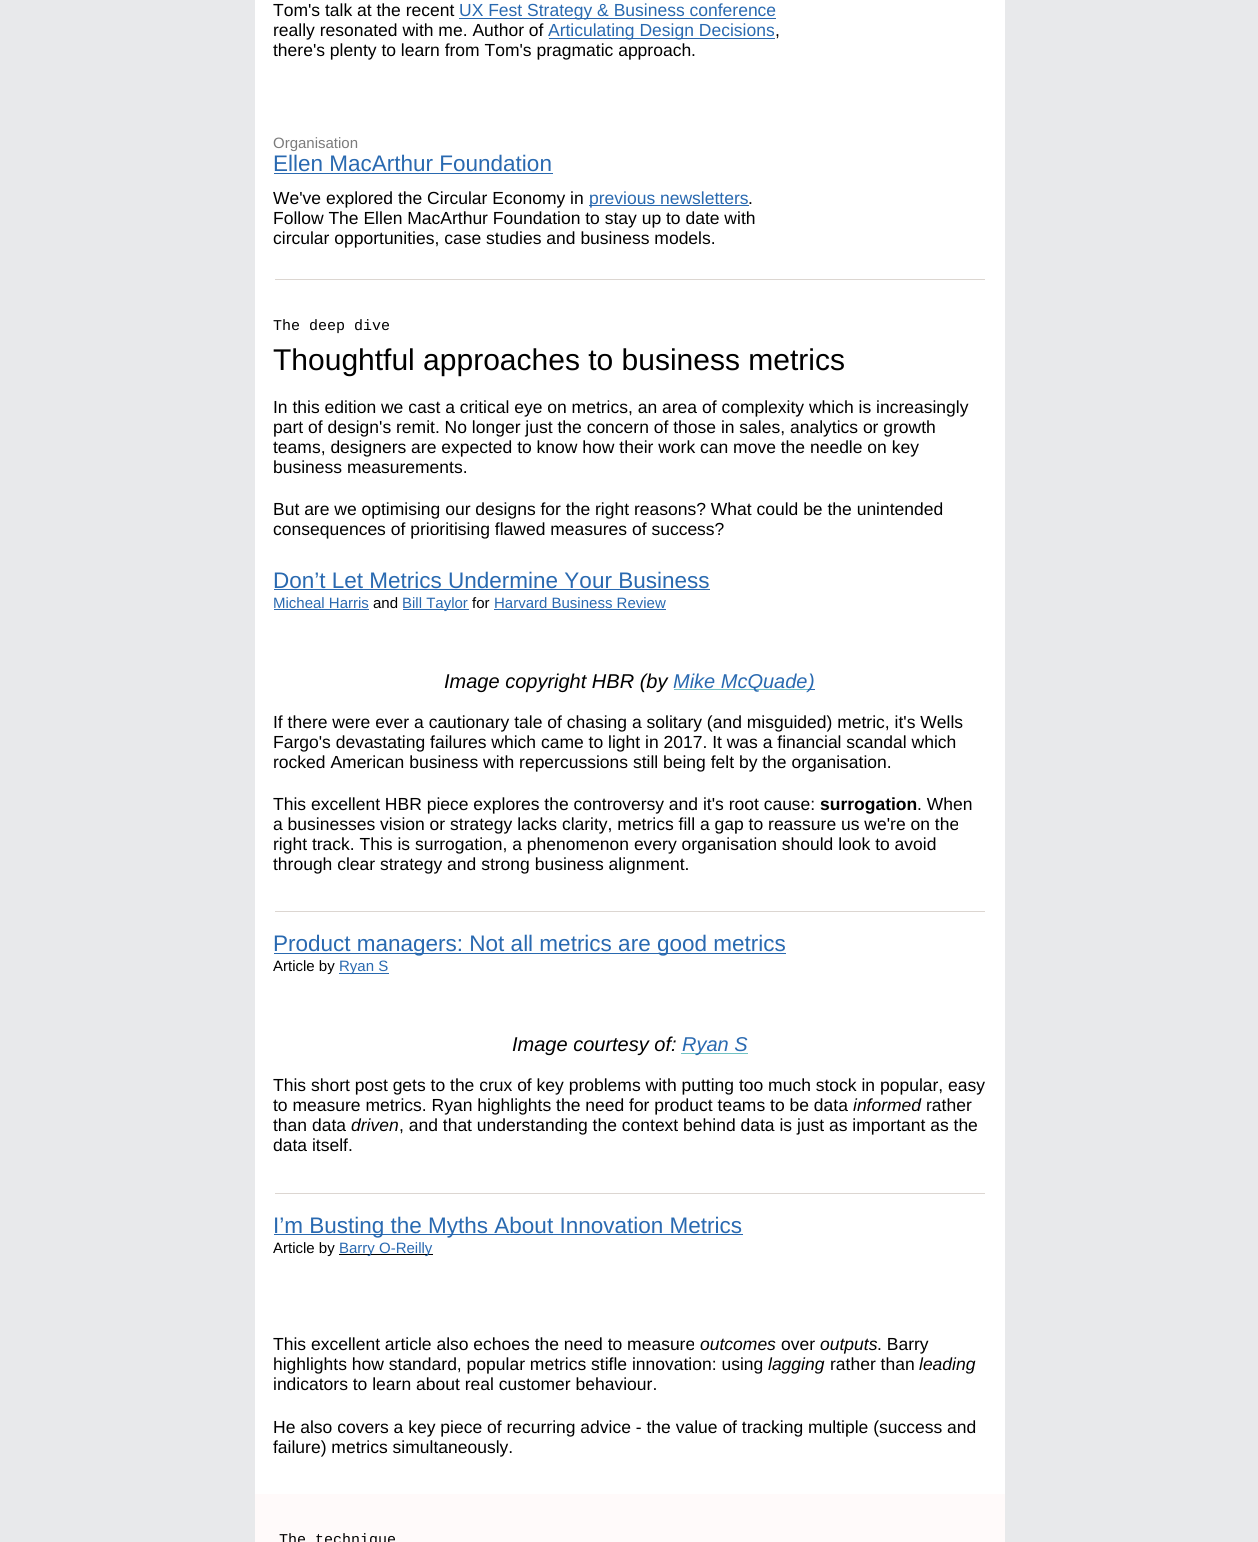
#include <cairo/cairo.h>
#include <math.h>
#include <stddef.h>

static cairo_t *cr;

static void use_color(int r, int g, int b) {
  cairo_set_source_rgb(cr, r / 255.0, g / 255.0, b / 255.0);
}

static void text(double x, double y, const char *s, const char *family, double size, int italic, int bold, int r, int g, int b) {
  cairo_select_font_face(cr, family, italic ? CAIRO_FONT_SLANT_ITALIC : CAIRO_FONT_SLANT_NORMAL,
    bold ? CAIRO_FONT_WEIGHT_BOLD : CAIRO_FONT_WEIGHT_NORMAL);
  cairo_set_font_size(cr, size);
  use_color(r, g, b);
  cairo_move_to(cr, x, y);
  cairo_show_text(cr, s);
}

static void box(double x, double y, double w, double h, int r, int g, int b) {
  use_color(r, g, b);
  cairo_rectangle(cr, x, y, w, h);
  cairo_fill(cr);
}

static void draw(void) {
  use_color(232, 233, 235);
  cairo_paint(cr);
  box(255, 0, 750, 1494, 255, 255, 255);
  box(459, 18, 317, 1, 41, 105, 176);
  box(549, 38, 226, 1, 41, 105, 176);
  box(274, 173, 279, 1, 41, 105, 176);
  box(589, 205, 160, 1, 41, 105, 176);
  box(275, 279, 710, 1, 220, 214, 209);
  box(274, 589, 436, 1, 41, 105, 176);
  box(274, 609, 95, 1, 41, 105, 176);
  box(403, 609, 66, 1, 41, 105, 176);
  box(494, 609, 172, 1, 41, 105, 176);
  box(674, 689, 134, 1, 112, 194, 195);
  box(808, 689, 7, 1, 41, 105, 176);
  box(275, 911, 710, 1, 220, 214, 209);
  box(274, 953, 512, 1, 41, 105, 176);
  box(339, 973, 50, 1, 41, 105, 176);
  box(681, 1053, 67, 1, 112, 194, 195);
  box(275, 1193, 710, 1, 220, 214, 209);
  box(274, 1234, 469, 1, 41, 105, 176);
  box(339, 1254, 94, 1, 0, 0, 0);
  box(255, 1494, 750, 48, 255, 250, 250);
  text(273, 16, "Tom's talk at the recent", "Liberation Sans", 17.5, 0, 0, 0, 0, 0);
  text(459, 16, "UX Fest Strategy & Business conference", "Liberation Sans", 17.5, 0, 0, 41, 105, 176);
  text(273, 36, "really resonated with me. Author of", "Liberation Sans", 17.5, 0, 0, 0, 0, 0);
  text(548, 36, "Articulating Design Decisions", "Liberation Sans", 17.5, 0, 0, 41, 105, 176);
  text(775, 36, ",", "Liberation Sans", 17.5, 0, 0, 0, 0, 0);
  text(273, 56, "there's plenty to learn from Tom's pragmatic approach.", "Liberation Sans", 17.5, 0, 0, 0, 0, 0);
  text(273, 148, "Organisation", "Liberation Sans", 15, 0, 0, 123, 123, 123);
  text(273, 171, "Ellen MacArthur Foundation", "Liberation Sans", 22.5, 0, 0, 41, 105, 176);
  text(273, 204, "We've explored the Circular Economy in", "Liberation Sans", 17.5, 0, 0, 0, 0, 0);
  text(589, 204, "previous newsletters", "Liberation Sans", 17.5, 0, 0, 41, 105, 176);
  text(748, 204, ".", "Liberation Sans", 17.5, 0, 0, 0, 0, 0);
  text(273, 224, "Follow The Ellen MacArthur Foundation to stay up to date with", "Liberation Sans", 17.5, 0, 0, 0, 0, 0);
  text(273, 244, "circular opportunities, case studies and business models.", "Liberation Sans", 17.5, 0, 0, 0, 0, 0);
  text(273, 330, "The deep dive", "Liberation Mono", 15, 0, 0, 0, 0, 0);
  text(273, 370, "Thoughtful approaches to business metrics", "Liberation Sans", 30, 0, 0, 0, 0, 0);
  text(273, 413, "In this edition we cast a critical eye on metrics, an area of complexity which is increasingly", "Liberation Sans", 17.5, 0, 0, 0, 0, 0);
  text(273, 433, "part of design's remit. No longer just the concern of those in sales, analytics or growth", "Liberation Sans", 17.5, 0, 0, 0, 0, 0);
  text(273, 453, "teams, designers are expected to know how their work can move the needle on key", "Liberation Sans", 17.5, 0, 0, 0, 0, 0);
  text(273, 473, "business measurements.", "Liberation Sans", 17.5, 0, 0, 0, 0, 0);
  text(273, 515, "But are we optimising our designs for the right reasons? What could be the unintended", "Liberation Sans", 17.5, 0, 0, 0, 0, 0);
  text(273, 535, "consequences of prioritising flawed measures of success?", "Liberation Sans", 17.5, 0, 0, 0, 0, 0);
  text(273, 588, "Don’t Let Metrics Undermine Your Business", "Liberation Sans", 22.5, 0, 0, 41, 105, 176);
  text(273, 608, "Micheal Harris", "Liberation Sans", 15, 0, 0, 41, 105, 176);
  text(373, 608, "and", "Liberation Sans", 15, 0, 0, 0, 0, 0);
  text(402, 608, "Bill Taylor", "Liberation Sans", 15, 0, 0, 41, 105, 176);
  text(472, 608, "for", "Liberation Sans", 15, 0, 0, 0, 0, 0);
  text(494, 608, "Harvard Business Review", "Liberation Sans", 15, 0, 0, 41, 105, 176);
  text(444, 688, "Image copyright HBR (by", "Liberation Sans", 20, 1, 0, 0, 0, 0);
  text(673, 688, "Mike McQuade", "Liberation Sans", 20, 1, 0, 41, 105, 176);
  text(808, 688, ")", "Liberation Sans", 20, 1, 0, 41, 105, 176);
  text(273, 728, "If there were ever a cautionary tale of chasing a solitary (and misguided) metric, it's Wells", "Liberation Sans", 17.5, 0, 0, 0, 0, 0);
  text(273, 748, "Fargo's devastating failures which came to light in 2017. It was a financial scandal which", "Liberation Sans", 17.5, 0, 0, 0, 0, 0);
  text(273, 768, "rocked American business with repercussions still being felt by the organisation.", "Liberation Sans", 17.5, 0, 0, 0, 0, 0);
  text(273, 810, "This excellent HBR piece explores the controversy and it's root cause:", "Liberation Sans", 17.5, 0, 0, 0, 0, 0);
  text(820, 810, "surrogation", "Liberation Sans", 17.5, 0, 1, 0, 0, 0);
  text(917, 810, ". When", "Liberation Sans", 17.5, 0, 0, 0, 0, 0);
  text(273, 830, "a businesses vision or strategy lacks clarity, metrics fill a gap to reassure us we're on the", "Liberation Sans", 17.5, 0, 0, 0, 0, 0);
  text(273, 850, "right track. This is surrogation, a phenomenon every organisation should look to avoid", "Liberation Sans", 17.5, 0, 0, 0, 0, 0);
  text(273, 870, "through clear strategy and strong business alignment.", "Liberation Sans", 17.5, 0, 0, 0, 0, 0);
  text(273, 951, "Product managers: Not all metrics are good metrics", "Liberation Sans", 22.5, 0, 0, 41, 105, 176);
  text(273, 971, "Article by", "Liberation Sans", 15, 0, 0, 0, 0, 0);
  text(339, 971, "Ryan S", "Liberation Sans", 15, 0, 0, 41, 105, 176);
  text(512, 1051, "Image courtesy of:", "Liberation Sans", 20, 1, 0, 0, 0, 0);
  text(682, 1051, "Ryan S", "Liberation Sans", 20, 1, 0, 41, 105, 176);
  text(273, 1091, "This short post gets to the crux of key problems with putting too much stock in popular, easy", "Liberation Sans", 17.5, 0, 0, 0, 0, 0);
  text(273, 1111, "to measure metrics. Ryan highlights the need for product teams to be data", "Liberation Sans", 17.5, 0, 0, 0, 0, 0);
  text(853, 1111, "informed", "Liberation Sans", 17.5, 1, 0, 0, 0, 0);
  text(926, 1111, "rather", "Liberation Sans", 17.5, 0, 0, 0, 0, 0);
  text(273, 1131, "than data", "Liberation Sans", 17.5, 0, 0, 0, 0, 0);
  text(351, 1131, "driven", "Liberation Sans", 17.5, 1, 0, 0, 0, 0);
  text(399, 1131, ", and that understanding the context behind data is just as important as the", "Liberation Sans", 17.5, 0, 0, 0, 0, 0);
  text(273, 1151, "data itself.", "Liberation Sans", 17.5, 0, 0, 0, 0, 0);
  text(273, 1233, "I’m Busting the Myths About Innovation Metrics", "Liberation Sans", 22.5, 0, 0, 41, 105, 176);
  text(273, 1253, "Article by", "Liberation Sans", 15, 0, 0, 0, 0, 0);
  text(339, 1253, "Barry O-Reilly", "Liberation Sans", 15, 0, 0, 41, 105, 176);
  text(273, 1350, "This excellent article also echoes the need to measure", "Liberation Sans", 17.5, 0, 0, 0, 0, 0);
  text(700, 1350, "outcomes", "Liberation Sans", 17.5, 1, 0, 0, 0, 0);
  text(781, 1350, "over", "Liberation Sans", 17.5, 0, 0, 0, 0, 0);
  text(820, 1350, "outputs", "Liberation Sans", 17.5, 1, 0, 0, 0, 0);
  text(877, 1350, ". Barry", "Liberation Sans", 17.5, 0, 0, 0, 0, 0);
  text(273, 1370, "highlights how standard, popular metrics stifle innovation: using", "Liberation Sans", 17.5, 0, 0, 0, 0, 0);
  text(768, 1370, "lagging", "Liberation Sans", 17.5, 1, 0, 0, 0, 0);
  text(830, 1370, "rather than", "Liberation Sans", 17.5, 0, 0, 0, 0, 0);
  text(919, 1370, "leading", "Liberation Sans", 17.5, 1, 0, 0, 0, 0);
  text(273, 1390, "indicators to learn about real customer behaviour.", "Liberation Sans", 17.5, 0, 0, 0, 0, 0);
  text(273, 1433, "He also covers a key piece of recurring advice - the value of tracking multiple (success and", "Liberation Sans", 17.5, 0, 0, 0, 0, 0);
  text(273, 1453, "failure) metrics simultaneously.", "Liberation Sans", 17.5, 0, 0, 0, 0, 0);
  text(279, 1544, "The technique", "Liberation Mono", 15, 0, 0, 0, 0, 0);
}

int main(void) {
  cairo_surface_t *surface = cairo_image_surface_create(CAIRO_FORMAT_RGB24, 1258, 1542);
  cr = cairo_create(surface);
  cairo_font_options_t *options = cairo_font_options_create();
  cairo_font_options_set_hint_metrics(options, CAIRO_HINT_METRICS_OFF);
  cairo_font_options_set_hint_style(options, CAIRO_HINT_STYLE_NONE);
  cairo_set_font_options(cr, options);
  cairo_set_miter_limit(cr, 4);
  draw();
  cairo_surface_write_to_png(surface, "out.png");
  cairo_font_options_destroy(options);
  cairo_destroy(cr);
  cairo_surface_destroy(surface);
  return 0;
}
